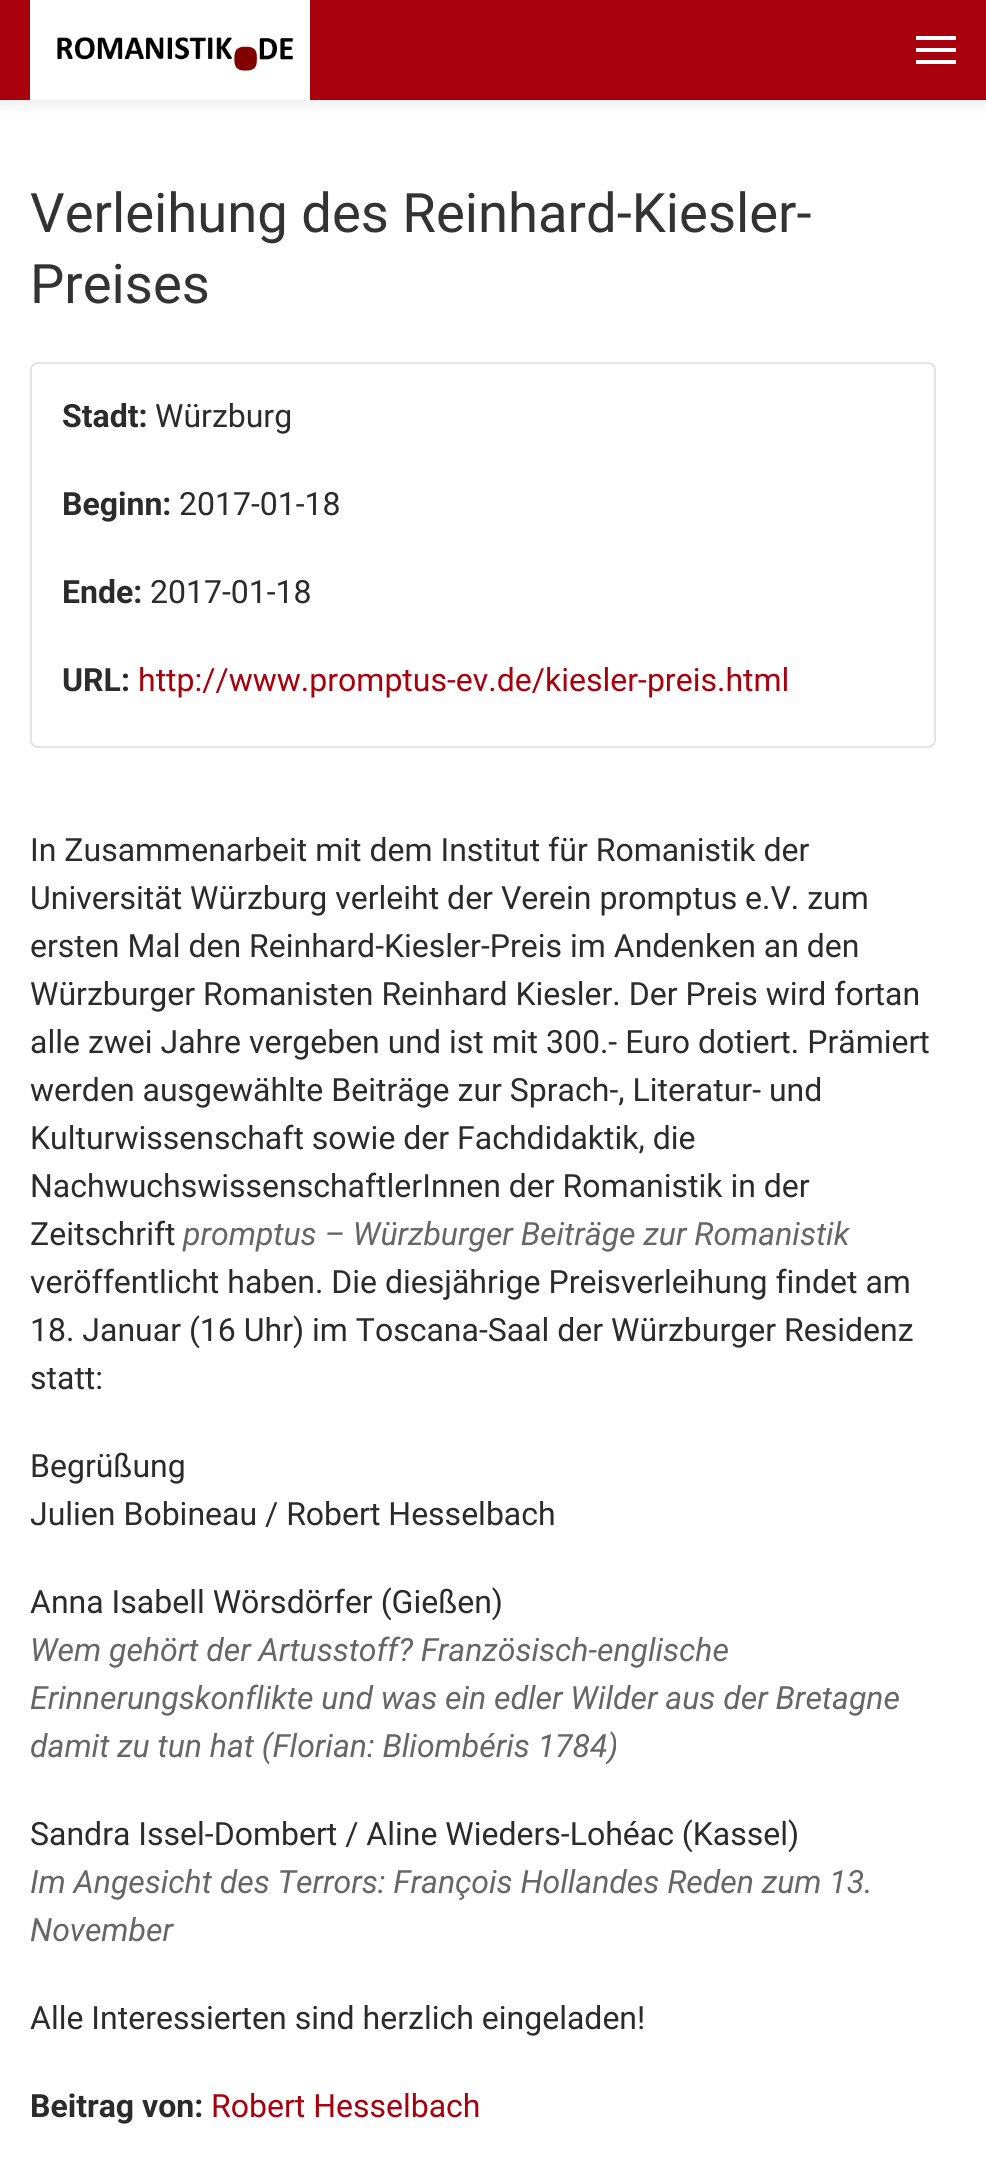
#include <cairo/cairo.h>
#include <math.h>
#include <stddef.h>

static cairo_t *cr;

static void use_color(int r, int g, int b) {
  cairo_set_source_rgb(cr, r / 255.0, g / 255.0, b / 255.0);
}

static void text(double x, double y, const char *s, const char *family, double size, int italic, int bold, int r, int g, int b) {
  cairo_select_font_face(cr, family, italic ? CAIRO_FONT_SLANT_ITALIC : CAIRO_FONT_SLANT_NORMAL,
    bold ? CAIRO_FONT_WEIGHT_BOLD : CAIRO_FONT_WEIGHT_NORMAL);
  cairo_set_font_size(cr, size);
  use_color(r, g, b);
  cairo_move_to(cr, x, y);
  cairo_show_text(cr, s);
}

static void box(double x, double y, double w, double h, int r, int g, int b) {
  use_color(r, g, b);
  cairo_rectangle(cr, x, y, w, h);
  cairo_fill(cr);
}

static void round_rect(double x, double y, double w, double h, double r) {
  cairo_new_sub_path(cr);
  cairo_arc(cr, x + w - r, y + h - r, r, 0, M_PI / 2);
  cairo_arc(cr, x + r, y + h - r, r, M_PI / 2, M_PI);
  cairo_arc(cr, x + r, y + r, r, M_PI, 1.5 * M_PI);
  cairo_arc(cr, x + w - r, y + r, r, 1.5 * M_PI, 2 * M_PI);
  cairo_close_path(cr);
}

static void shadow(double x, double y, double w, double h, double r, double blur, double alpha) {
  cairo_push_group_with_content(cr, CAIRO_CONTENT_ALPHA);
  cairo_set_operator(cr, CAIRO_OPERATOR_SOURCE);
  for (int i = 15; i >= -15 && fmin(w, h) + blur * i / 3 > 0; i -= 2) {
    double e = blur * i / 6;
    cairo_set_source_rgba(cr, 0, 0, 0, alpha * erfc((i - 1) / 8.5) / 2);
    round_rect(x - e, y - e, w + 2 * e, h + 2 * e, fmax(0, fmin(r + e + blur * .6, fmin(w, h) / 2 + e)));
    cairo_fill(cr);
  }
  cairo_pattern_t *soft = cairo_pop_group(cr);
  cairo_mask(cr, soft);
  cairo_pattern_destroy(soft);
}

static void picture(const char *path, double x, double y, double w, double h) {
  cairo_surface_t *image = cairo_image_surface_create_from_png(path);
  cairo_save(cr);
  cairo_set_source_surface(cr, image, x, y);
  cairo_rectangle(cr, x, y, w, h);
  cairo_fill(cr);
  cairo_restore(cr);
  cairo_surface_destroy(image);
}

static void draw(void) {
  use_color(255, 255, 255);
  cairo_paint(cr);
  use_color(0, 0, 0);
  shadow(0, 4, 986, 100, 0, 8, 0.08);
  box(0, 0, 986, 100, 168, 0, 12);
  box(30, 0, 280, 100, 255, 255, 255);
  picture("img_01.png", 57, 37, 237, 34);
  box(916, 36, 40, 4, 255, 255, 255);
  box(916, 48, 40, 4, 255, 255, 255);
  box(916, 60, 40, 4, 255, 255, 255);
  round_rect(31, 363, 904, 384, 7);
  use_color(227, 227, 227);
  cairo_stroke(cr);
  text(30, 232, "Verleihung des Reinhard-Kiesler-", "Roboto", 54.4, 0, 0, 51, 51, 51);
  text(30, 303, "Preises", "Roboto", 54.4, 0, 0, 51, 51, 51);
  text(62, 427, "Stadt:", "Roboto", 32, 0, 1, 43, 43, 43);
  text(155, 427, "Würzburg", "Roboto", 32, 0, 0, 43, 43, 43);
  text(62, 515, "Beginn:", "Roboto", 32, 0, 1, 43, 43, 43);
  text(179, 515, "2017-01-18", "Roboto", 32, 0, 0, 43, 43, 43);
  text(62, 603, "Ende:", "Roboto", 32, 0, 1, 43, 43, 43);
  text(150, 603, "2017-01-18", "Roboto", 32, 0, 0, 43, 43, 43);
  text(62, 691, "URL:", "Roboto", 32, 0, 1, 43, 43, 43);
  text(138, 691, "http://www.promptus-ev.de/kiesler-preis.html", "Roboto", 32, 0, 0, 168, 0, 12);
  text(30, 861, "In Zusammenarbeit mit dem Institut für Romanistik der", "Roboto", 32, 0, 0, 43, 43, 43);
  text(30, 909, "Universität Würzburg verleiht der Verein promptus e.V. zum", "Roboto", 32, 0, 0, 43, 43, 43);
  text(30, 957, "ersten Mal den Reinhard-Kiesler-Preis im Andenken an den", "Roboto", 32, 0, 0, 43, 43, 43);
  text(30, 1005, "Würzburger Romanisten Reinhard Kiesler. Der Preis wird fortan", "Roboto", 32, 0, 0, 43, 43, 43);
  text(30, 1053, "alle zwei Jahre vergeben und ist mit 300.- Euro dotiert. Prämiert", "Roboto", 32, 0, 0, 43, 43, 43);
  text(30, 1101, "werden ausgewählte Beiträge zur Sprach-, Literatur- und", "Roboto", 32, 0, 0, 43, 43, 43);
  text(30, 1149, "Kulturwissenschaft sowie der Fachdidaktik, die", "Roboto", 32, 0, 0, 43, 43, 43);
  text(30, 1197, "NachwuchswissenschaftlerInnen der Romanistik in der", "Roboto", 32, 0, 0, 43, 43, 43);
  text(30, 1245, "Zeitschrift", "Roboto", 32, 0, 0, 43, 43, 43);
  text(183, 1245, "promptus – Würzburger Beiträge zur Romanistik", "Roboto", 32, 1, 0, 102, 102, 102);
  text(30, 1293, "veröffentlicht haben. Die diesjährige Preisverleihung findet am", "Roboto", 32, 0, 0, 43, 43, 43);
  text(30, 1341, "18. Januar (16 Uhr) im Toscana-Saal der Würzburger Residenz", "Roboto", 32, 0, 0, 43, 43, 43);
  text(30, 1389, "statt:", "Roboto", 32, 0, 0, 43, 43, 43);
  text(30, 1477, "Begrüßung", "Roboto", 32, 0, 0, 43, 43, 43);
  text(30, 1525, "Julien Bobineau / Robert Hesselbach", "Roboto", 32, 0, 0, 43, 43, 43);
  text(30, 1613, "Anna Isabell Wörsdörfer (Gießen)", "Roboto", 32, 0, 0, 43, 43, 43);
  text(30, 1661, "Wem gehört der Artusstoff? Französisch-englische", "Roboto", 32, 1, 0, 102, 102, 102);
  text(30, 1709, "Erinnerungskonflikte und was ein edler Wilder aus der Bretagne", "Roboto", 32, 1, 0, 102, 102, 102);
  text(30, 1757, "damit zu tun hat (Florian: Bliombéris 1784)", "Roboto", 32, 1, 0, 102, 102, 102);
  text(30, 1845, "Sandra Issel-Dombert / Aline Wieders-Lohéac (Kassel)", "Roboto", 32, 0, 0, 43, 43, 43);
  text(30, 1893, "Im Angesicht des Terrors: François Hollandes Reden zum 13.", "Roboto", 32, 1, 0, 102, 102, 102);
  text(30, 1941, "November", "Roboto", 32, 1, 0, 102, 102, 102);
  text(30, 2029, "Alle Interessierten sind herzlich eingeladen!", "Roboto", 32, 0, 0, 43, 43, 43);
  text(30, 2117, "Beitrag von:", "Roboto", 32, 0, 1, 43, 43, 43);
  text(211, 2117, "Robert Hesselbach", "Roboto", 32, 0, 0, 168, 0, 12);
}

int main(void) {
  cairo_surface_t *surface = cairo_image_surface_create(CAIRO_FORMAT_RGB24, 986, 2159);
  cr = cairo_create(surface);
  cairo_font_options_t *options = cairo_font_options_create();
  cairo_font_options_set_hint_metrics(options, CAIRO_HINT_METRICS_OFF);
  cairo_font_options_set_hint_style(options, CAIRO_HINT_STYLE_NONE);
  cairo_set_font_options(cr, options);
  cairo_set_miter_limit(cr, 4);
  draw();
  cairo_surface_write_to_png(surface, "out.png");
  cairo_font_options_destroy(options);
  cairo_destroy(cr);
  cairo_surface_destroy(surface);
  return 0;
}
